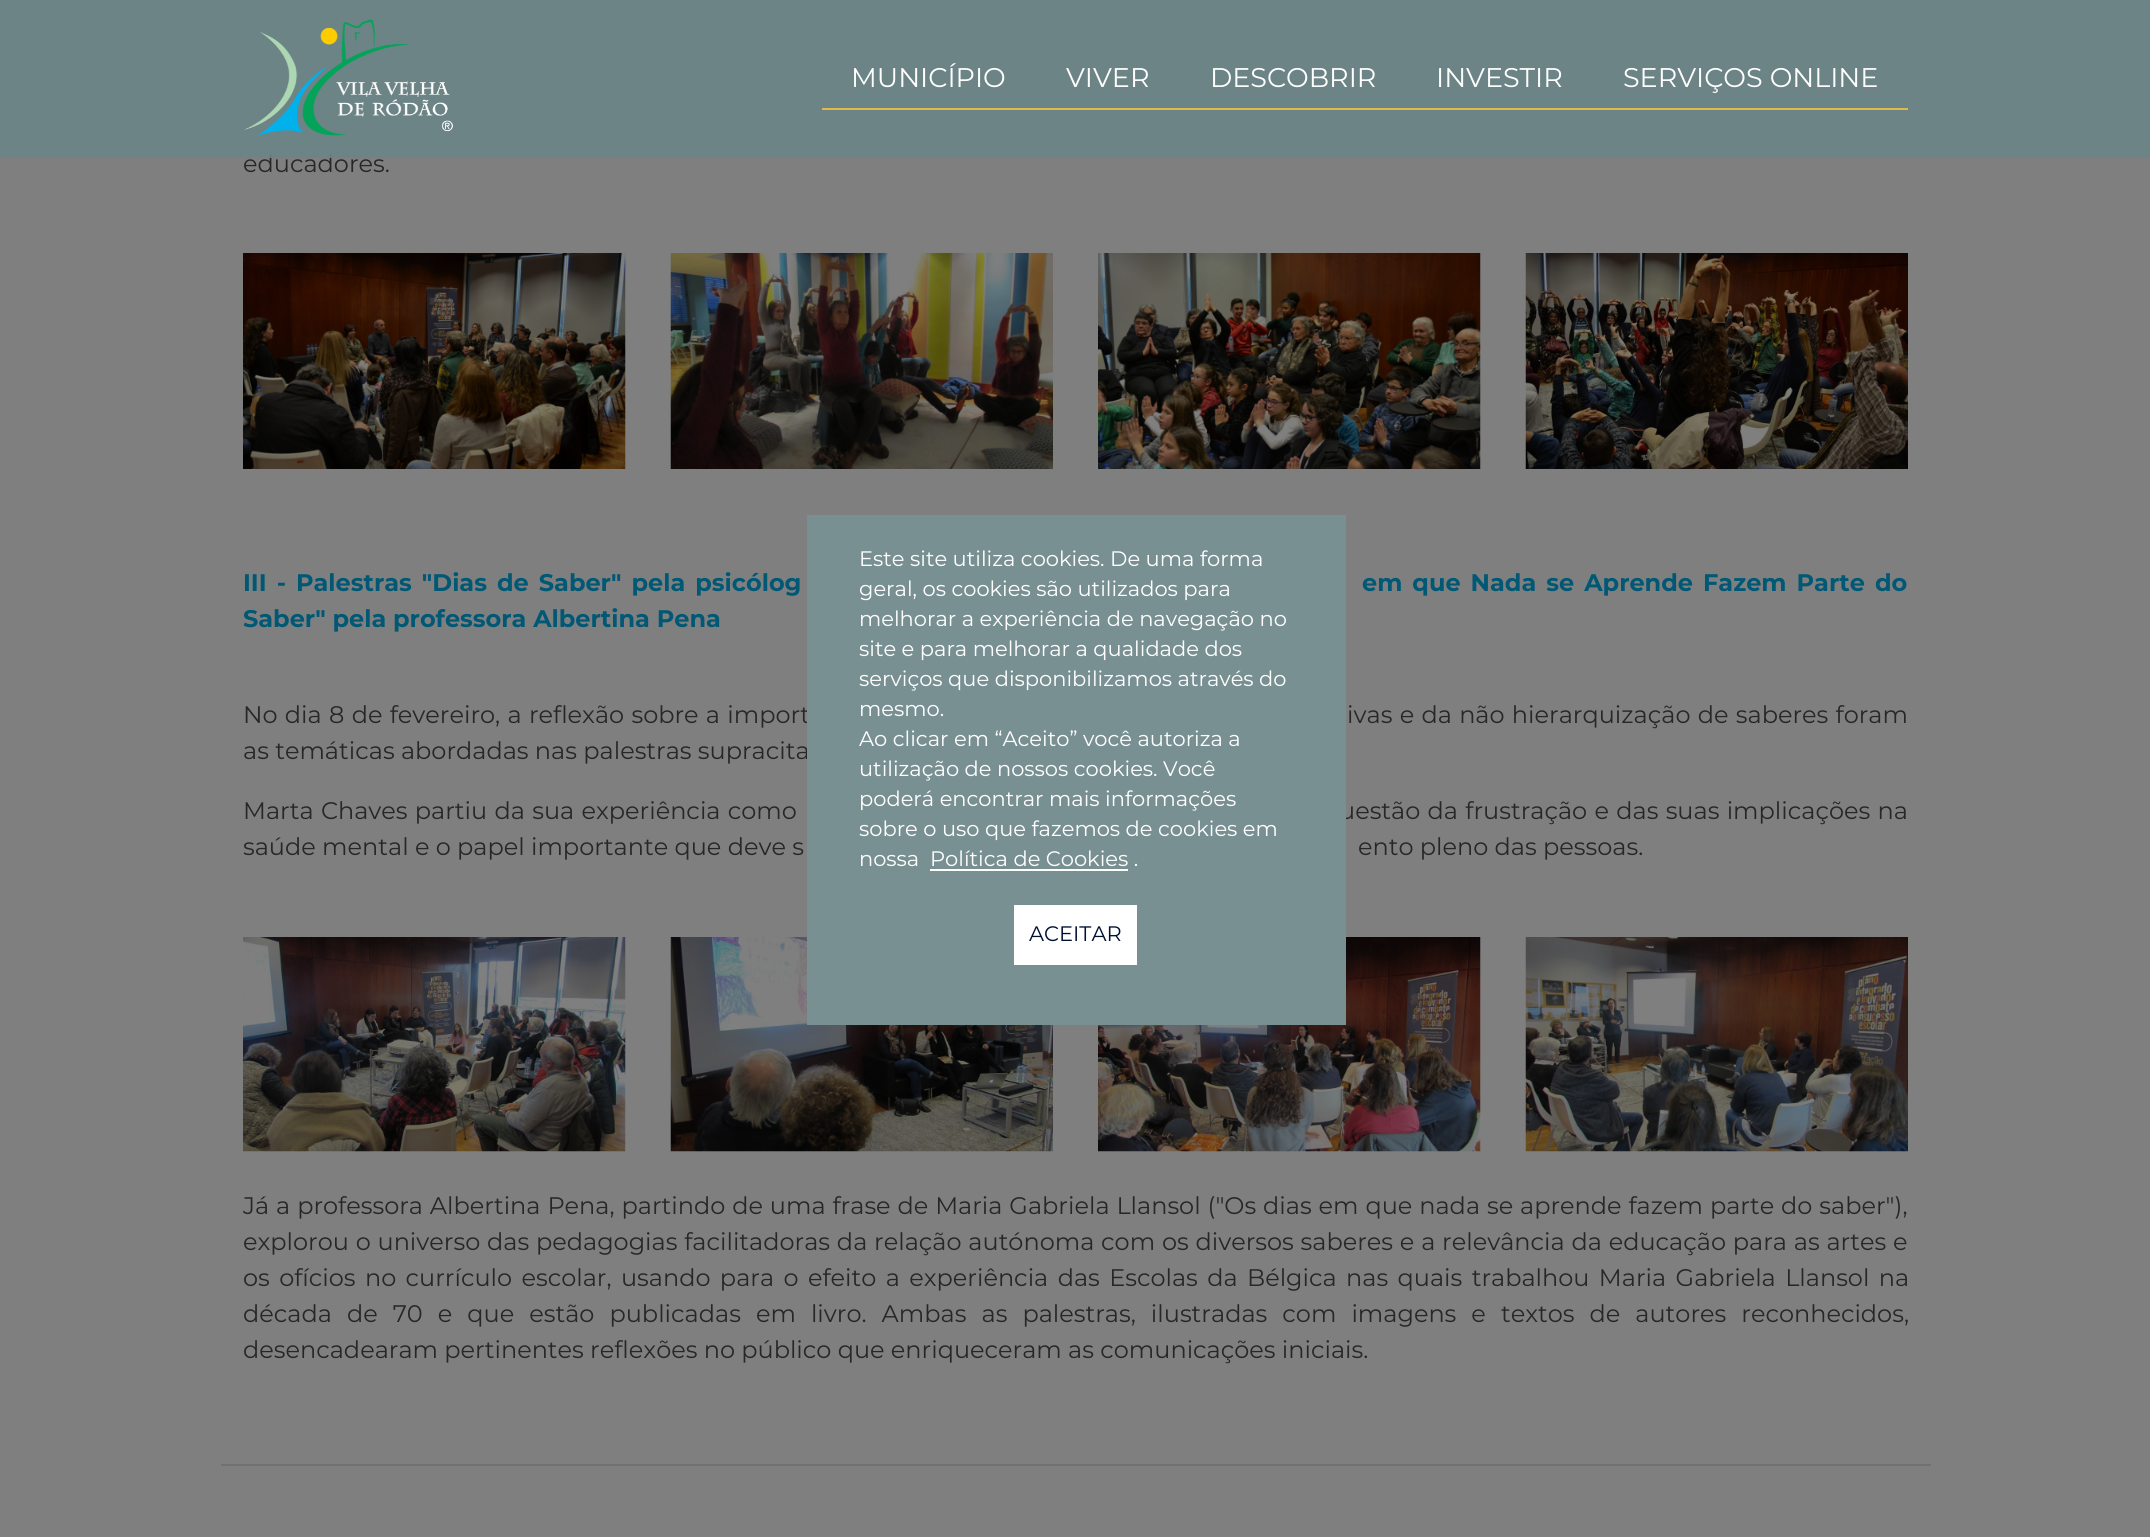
#include <cairo/cairo.h>
#include <math.h>
#include <stddef.h>

static cairo_t *cr;

static void use_color(int r, int g, int b) {
  cairo_set_source_rgb(cr, r / 255.0, g / 255.0, b / 255.0);
}

static void text(double x, double y, const char *s, const char *family, double size, int italic, int bold, int r, int g, int b) {
  cairo_select_font_face(cr, family, italic ? CAIRO_FONT_SLANT_ITALIC : CAIRO_FONT_SLANT_NORMAL,
    bold ? CAIRO_FONT_WEIGHT_BOLD : CAIRO_FONT_WEIGHT_NORMAL);
  cairo_set_font_size(cr, size);
  use_color(r, g, b);
  cairo_move_to(cr, x, y);
  cairo_show_text(cr, s);
}

static void spaced_text(double x, double y, const char *s, double letter, double word) {
  cairo_move_to(cr, x, y);
  while (*s) {
    char ch[5] = {0};
    int n = 0;
    do ch[n++] = *s++; while ((*s & 0xC0) == 0x80);
    cairo_show_text(cr, ch);
    cairo_rel_move_to(cr, letter + word * (*ch == ' '), 0);
  }
}

static void box(double x, double y, double w, double h, int r, int g, int b) {
  use_color(r, g, b);
  cairo_rectangle(cr, x, y, w, h);
  cairo_fill(cr);
}

static void picture(const char *path, double x, double y, double w, double h) {
  cairo_surface_t *image = cairo_image_surface_create_from_png(path);
  cairo_save(cr);
  cairo_set_source_surface(cr, image, x, y);
  cairo_rectangle(cr, x, y, w, h);
  cairo_fill(cr);
  cairo_restore(cr);
  cairo_surface_destroy(image);
}

static void draw(void) {
  use_color(255, 255, 255);
  cairo_paint(cr);
  picture("img_02.png", 243, 253, 383, 216);
  picture("img_03.png", 670, 253, 383, 216);
  picture("img_04.png", 1098, 253, 383, 216);
  picture("img_05.png", 1525, 253, 383, 216);
  picture("img_06.png", 243, 937, 383, 215);
  picture("img_07.png", 670, 937, 383, 215);
  picture("img_08.png", 1098, 937, 383, 215);
  picture("img_09.png", 1525, 937, 383, 215);
  box(221, 1464, 1710, 2, 222, 226, 230);
  text(243, 172, "educadores.", "Montserrat Thin", 24, 0, 0, 79, 79, 79);
  cairo_select_font_face(cr, "Montserrat", CAIRO_FONT_SLANT_NORMAL, CAIRO_FONT_WEIGHT_BOLD);
  use_color(0, 177, 235);
  spaced_text(243, 591, "III - Palestras \"Dias de Saber\" pela psicólog", 0, 3.25);
  spaced_text(1362, 591, "em que Nada se Aprende Fazem Parte do", 0, 3.25);
  text(243, 627, "Saber\" pela professora Albertina Pena", "Montserrat", 24, 0, 1, 0, 177, 235);
  cairo_select_font_face(cr, "Montserrat Thin", CAIRO_FONT_SLANT_NORMAL, CAIRO_FONT_WEIGHT_NORMAL);
  use_color(79, 79, 79);
  spaced_text(243, 723, "No dia 8 de fevereiro, a reflexão sobre a import", 0, 1);
  spaced_text(1347, 723, "ivas e da não hierarquização de saberes foram", 0, 1);
  text(243, 759, "as temáticas abordadas nas palestras supracita", "Montserrat Thin", 24, 0, 0, 79, 79, 79);
  spaced_text(243, 819, "Marta Chaves partiu da sua experiência como", 0, 1);
  spaced_text(1339, 819, "uestão da frustração e das suas implicações na", 0, 1);
  text(243, 855, "saúde mental e o papel importante que deve s", "Montserrat Thin", 24, 0, 0, 79, 79, 79);
  text(1358, 855, "ento pleno das pessoas.", "Montserrat Thin", 24, 0, 0, 79, 79, 79);
  spaced_text(243, 1214, "Já a professora Albertina Pena, partindo de uma frase de Maria Gabriela Llansol (\"Os dias em que nada se aprende fazem parte do saber\"),", 0, 0.6);
  spaced_text(243, 1250, "explorou o universo das pedagogias facilitadoras da relação autónoma com os diversos saberes e a relevância da educação para as artes e", 0, 0.5);
  spaced_text(243, 1286, "os ofícios no currículo escolar, usando para o efeito a experiência das Escolas da Bélgica nas quais trabalhou Maria Gabriela Llansol na", 0, 3.1);
  spaced_text(243, 1322, "década de 70 e que estão publicadas em livro. Ambas as palestras, ilustradas com imagens e textos de autores reconhecidos,", 0, 8.75);
  text(243, 1358, "desencadearam pertinentes reflexões no público que enriqueceram as comunicações iniciais.", "Montserrat Thin", 24, 0, 0, 79, 79, 79);
  cairo_rectangle(cr, 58.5, -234.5, 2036, 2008);
  cairo_set_source_rgba(cr, 0, 0, 0, 0.5);
  cairo_set_line_width(cr, 1499);
  cairo_stroke(cr);
  cairo_set_source_rgba(cr, 0.42, 0.522, 0.533, 0.9);
  cairo_rectangle(cr, 0, 0, 2150, 158);
  cairo_fill(cr);
  picture("img_01.png", 244, 19, 209, 118);
  text(1623, 87, "SERVIÇOS ONLINE", "Montserrat Thin", 27, 0, 0, 255, 255, 255);
  text(1436, 87, "INVESTIR", "Montserrat Thin", 27, 0, 0, 255, 255, 255);
  text(1210, 87, "DESCOBRIR", "Montserrat Thin", 27, 0, 0, 255, 255, 255);
  text(1066, 87, "VIVER", "Montserrat Thin", 27, 0, 0, 255, 255, 255);
  text(851, 87, "MUNICÍPIO", "Montserrat Thin", 27, 0, 0, 255, 255, 255);
  box(822, 108, 1086, 2, 222, 186, 76);
  box(807, 515, 539, 510, 121, 144, 147);
  text(859, 566, "Este site utiliza cookies. De uma forma", "Montserrat Thin", 21, 0, 0, 255, 255, 255);
  text(859, 596, "geral, os cookies são utilizados para", "Montserrat Thin", 21, 0, 0, 255, 255, 255);
  text(859, 626, "melhorar a experiência de navegação no", "Montserrat Thin", 21, 0, 0, 255, 255, 255);
  text(859, 656, "site e para melhorar a qualidade dos", "Montserrat Thin", 21, 0, 0, 255, 255, 255);
  text(859, 686, "serviços que disponibilizamos através do", "Montserrat Thin", 21, 0, 0, 255, 255, 255);
  text(859, 716, "mesmo.", "Montserrat Thin", 21, 0, 0, 255, 255, 255);
  text(859, 746, "Ao clicar em “Aceito” você autoriza a", "Montserrat Thin", 21, 0, 0, 255, 255, 255);
  text(859, 776, "utilização de nossos cookies. Você", "Montserrat Thin", 21, 0, 0, 255, 255, 255);
  text(859, 806, "poderá encontrar mais informações", "Montserrat Thin", 21, 0, 0, 255, 255, 255);
  text(859, 836, "sobre o uso que fazemos de cookies em", "Montserrat Thin", 21, 0, 0, 255, 255, 255);
  text(859, 866, "nossa", "Montserrat Thin", 21, 0, 0, 255, 255, 255);
  text(930, 866, "Política de Cookies .", "Montserrat Thin", 21, 0, 0, 255, 255, 255);
  box(930, 869, 198, 2, 255, 255, 255);
  box(1014, 905, 123, 60, 255, 255, 255);
  text(1029, 941, "ACEITAR", "Montserrat Thin", 21, 0, 0, 0, 16, 51);
}

int main(void) {
  cairo_surface_t *surface = cairo_image_surface_create(CAIRO_FORMAT_RGB24, 2150, 1537);
  cr = cairo_create(surface);
  cairo_font_options_t *options = cairo_font_options_create();
  cairo_font_options_set_hint_metrics(options, CAIRO_HINT_METRICS_OFF);
  cairo_font_options_set_hint_style(options, CAIRO_HINT_STYLE_NONE);
  cairo_set_font_options(cr, options);
  cairo_set_miter_limit(cr, 4);
  draw();
  cairo_surface_write_to_png(surface, "out.png");
  cairo_font_options_destroy(options);
  cairo_destroy(cr);
  cairo_surface_destroy(surface);
  return 0;
}
